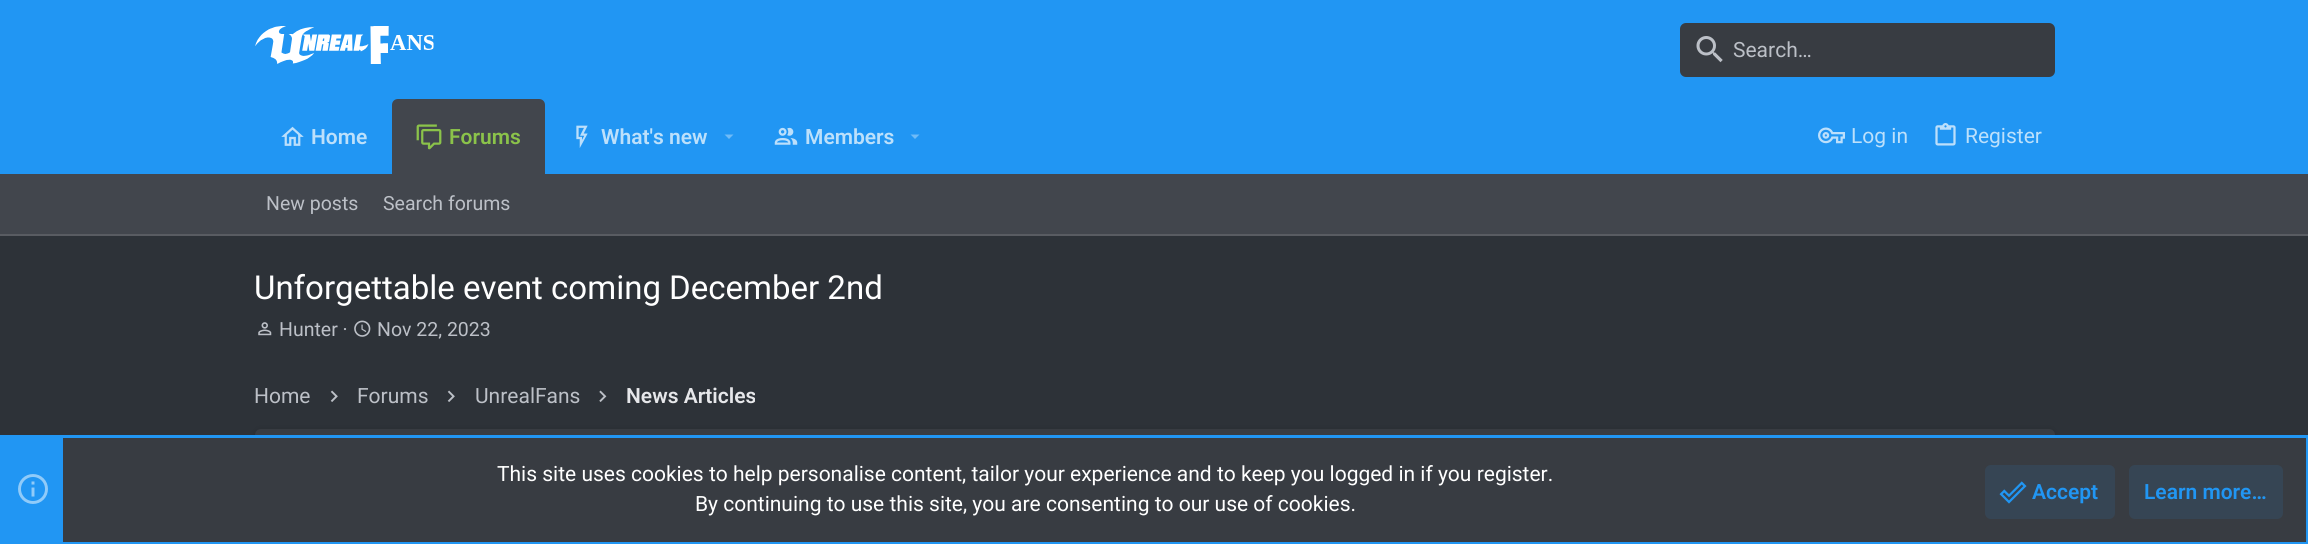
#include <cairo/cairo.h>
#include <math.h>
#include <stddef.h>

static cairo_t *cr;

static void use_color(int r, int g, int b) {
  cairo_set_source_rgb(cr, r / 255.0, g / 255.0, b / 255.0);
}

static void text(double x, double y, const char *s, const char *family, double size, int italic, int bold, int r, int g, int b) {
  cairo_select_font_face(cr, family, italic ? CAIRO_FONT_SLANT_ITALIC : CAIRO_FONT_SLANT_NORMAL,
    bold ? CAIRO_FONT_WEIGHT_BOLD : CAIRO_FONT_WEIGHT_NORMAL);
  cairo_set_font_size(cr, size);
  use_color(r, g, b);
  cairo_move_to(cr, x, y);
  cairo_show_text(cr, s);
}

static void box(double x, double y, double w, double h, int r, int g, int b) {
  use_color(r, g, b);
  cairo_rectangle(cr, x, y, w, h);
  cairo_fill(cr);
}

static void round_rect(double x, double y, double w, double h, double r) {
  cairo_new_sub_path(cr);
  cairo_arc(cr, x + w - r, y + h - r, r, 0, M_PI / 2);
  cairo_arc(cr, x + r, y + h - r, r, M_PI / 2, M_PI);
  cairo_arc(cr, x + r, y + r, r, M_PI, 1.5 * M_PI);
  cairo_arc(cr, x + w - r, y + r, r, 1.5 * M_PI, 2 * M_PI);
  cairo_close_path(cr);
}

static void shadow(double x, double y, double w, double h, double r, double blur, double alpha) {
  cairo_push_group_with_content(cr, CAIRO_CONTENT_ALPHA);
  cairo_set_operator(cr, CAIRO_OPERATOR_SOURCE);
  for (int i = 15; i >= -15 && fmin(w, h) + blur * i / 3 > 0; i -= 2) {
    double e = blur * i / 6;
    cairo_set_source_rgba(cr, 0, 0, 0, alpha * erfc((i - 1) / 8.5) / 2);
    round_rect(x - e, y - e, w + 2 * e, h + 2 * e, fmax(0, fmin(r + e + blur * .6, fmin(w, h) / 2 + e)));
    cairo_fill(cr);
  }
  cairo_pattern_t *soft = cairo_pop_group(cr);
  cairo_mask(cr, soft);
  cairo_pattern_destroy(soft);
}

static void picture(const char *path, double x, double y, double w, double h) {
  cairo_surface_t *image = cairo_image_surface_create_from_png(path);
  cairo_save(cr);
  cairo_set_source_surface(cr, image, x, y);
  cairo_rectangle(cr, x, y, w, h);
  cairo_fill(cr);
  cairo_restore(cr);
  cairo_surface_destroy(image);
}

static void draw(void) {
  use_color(45, 50, 56);
  cairo_paint(cr);
  box(0, 0, 2308, 174, 33, 150, 243);
  picture("img_01.png", 255, 26, 179, 38);
  use_color(56, 60, 66);
  round_rect(1680, 23, 375, 54, 6);
  cairo_fill(cr);
  picture("img_02.png", 1696, 36, 27, 27);
  picture("img_03.png", 281, 126, 23, 20);
  use_color(66, 70, 77);
  cairo_new_path(cr);
  cairo_move_to(cr, 398, 99);
  cairo_line_to(cr, 539, 99);
  cairo_curve_to(cr, 542.5, 99, 545, 101.5, 545, 105);
  cairo_line_to(cr, 545, 174);
  cairo_line_to(cr, 392, 174);
  cairo_line_to(cr, 392, 105);
  cairo_curve_to(cr, 392, 101.5, 394.5, 99, 398, 99);
  cairo_close_path(cr);
  cairo_fill(cr);
  picture("img_04.png", 416, 124, 26, 26);
  picture("img_05.png", 576, 125, 12, 23);
  use_color(111, 187, 247);
  cairo_new_path(cr);
  cairo_move_to(cr, 724.5, 134.5);
  cairo_line_to(cr, 729, 139);
  cairo_line_to(cr, 733.5, 134.5);
  cairo_close_path(cr);
  cairo_fill(cr);
  picture("img_06.png", 774, 127, 24, 18);
  cairo_new_path(cr);
  cairo_move_to(cr, 910.5, 134.5);
  cairo_line_to(cr, 915, 139);
  cairo_line_to(cr, 919.5, 134.5);
  cairo_close_path(cr);
  cairo_fill(cr);
  picture("img_07.png", 1818, 127, 27, 17);
  picture("img_08.png", 1935, 123, 21, 23);
  box(0, 174, 2308, 60, 66, 70, 77);
  box(0, 234, 2308, 2, 89, 92, 98);
  picture("img_09.png", 258, 322, 14, 14);
  picture("img_10.png", 354, 320, 17, 17);
  picture("img_11.png", 330, 390, 8, 12);
  picture("img_11.png", 447, 390, 8, 12);
  picture("img_12.png", 599, 390, 8, 12);
  use_color(0, 0, 0);
  shadow(255, 431, 1800, 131, 6, 4, 0.2);
  use_color(56, 60, 66);
  round_rect(255, 429, 1800, 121, 6);
  cairo_fill(cr);
  box(63, 438, 2243, 104, 56, 60, 66);
  cairo_rectangle(cr, 1.5, 436.5, 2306, 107);
  use_color(33, 150, 243);
  cairo_set_line_width(cr, 3);
  cairo_stroke(cr);
  box(3, 438, 60, 104, 33, 150, 243);
  picture("img_13.png", 18, 474, 30, 30);
  use_color(54, 69, 84);
  round_rect(1985, 465, 130, 54, 6);
  cairo_fill(cr);
  picture("img_14.png", 1999, 481, 28, 23);
  round_rect(2129, 465, 154, 54, 6);
  cairo_fill(cr);
  text(1733, 57, "Search…", "Roboto", 21, 0, 0, 188, 192, 199);
  text(311, 144, "Home", "Roboto SemiBold", 21, 0, 0, 188, 224, 251);
  text(449, 144, "Forums", "Roboto SemiBold", 21, 0, 0, 139, 195, 74);
  text(601, 144, "What's new", "Roboto SemiBold", 21, 0, 0, 188, 224, 251);
  text(805, 144, "Members", "Roboto SemiBold", 21, 0, 0, 188, 224, 251);
  text(1851, 143, "Log in", "Roboto", 21, 0, 0, 188, 224, 251);
  text(1965, 143, "Register", "Roboto", 21, 0, 0, 188, 224, 251);
  text(266, 210, "New posts", "Roboto", 19.5, 0, 0, 188, 192, 199);
  text(383, 210, "Search forums", "Roboto", 19.5, 0, 0, 188, 192, 199);
  text(254, 299, "Unforgettable event coming December 2nd", "Roboto", 33, 0, 0, 255, 255, 255);
  text(279, 336, "Hunter ·", "Roboto", 19.5, 0, 0, 188, 192, 199);
  text(377, 336, "Nov 22, 2023", "Roboto", 19.5, 0, 0, 188, 192, 199);
  text(254, 403, "Home", "Roboto", 21, 0, 0, 188, 192, 199);
  text(357, 403, "Forums", "Roboto", 21, 0, 0, 188, 192, 199);
  text(475, 403, "UnrealFans", "Roboto", 21, 0, 0, 188, 192, 199);
  text(626, 403, "News Articles", "Roboto SemiBold", 21, 0, 0, 230, 231, 234);
  text(497, 481, "This site uses cookies to help personalise content, tailor your experience and to keep you logged in if you register.", "Roboto", 21, 0, 0, 255, 255, 255);
  text(695, 511, "By continuing to use this site, you are consenting to our use of cookies.", "Roboto", 21, 0, 0, 255, 255, 255);
  text(2032, 499, "Accept", "Roboto SemiBold", 21, 0, 0, 33, 150, 243);
  text(2144, 499, "Learn more…", "Roboto SemiBold", 21, 0, 0, 33, 150, 243);
}

int main(void) {
  cairo_surface_t *surface = cairo_image_surface_create(CAIRO_FORMAT_RGB24, 2308, 544);
  cr = cairo_create(surface);
  cairo_font_options_t *options = cairo_font_options_create();
  cairo_font_options_set_hint_metrics(options, CAIRO_HINT_METRICS_OFF);
  cairo_font_options_set_hint_style(options, CAIRO_HINT_STYLE_NONE);
  cairo_set_font_options(cr, options);
  cairo_set_miter_limit(cr, 4);
  draw();
  cairo_surface_write_to_png(surface, "out.png");
  cairo_font_options_destroy(options);
  cairo_destroy(cr);
  cairo_surface_destroy(surface);
  return 0;
}
